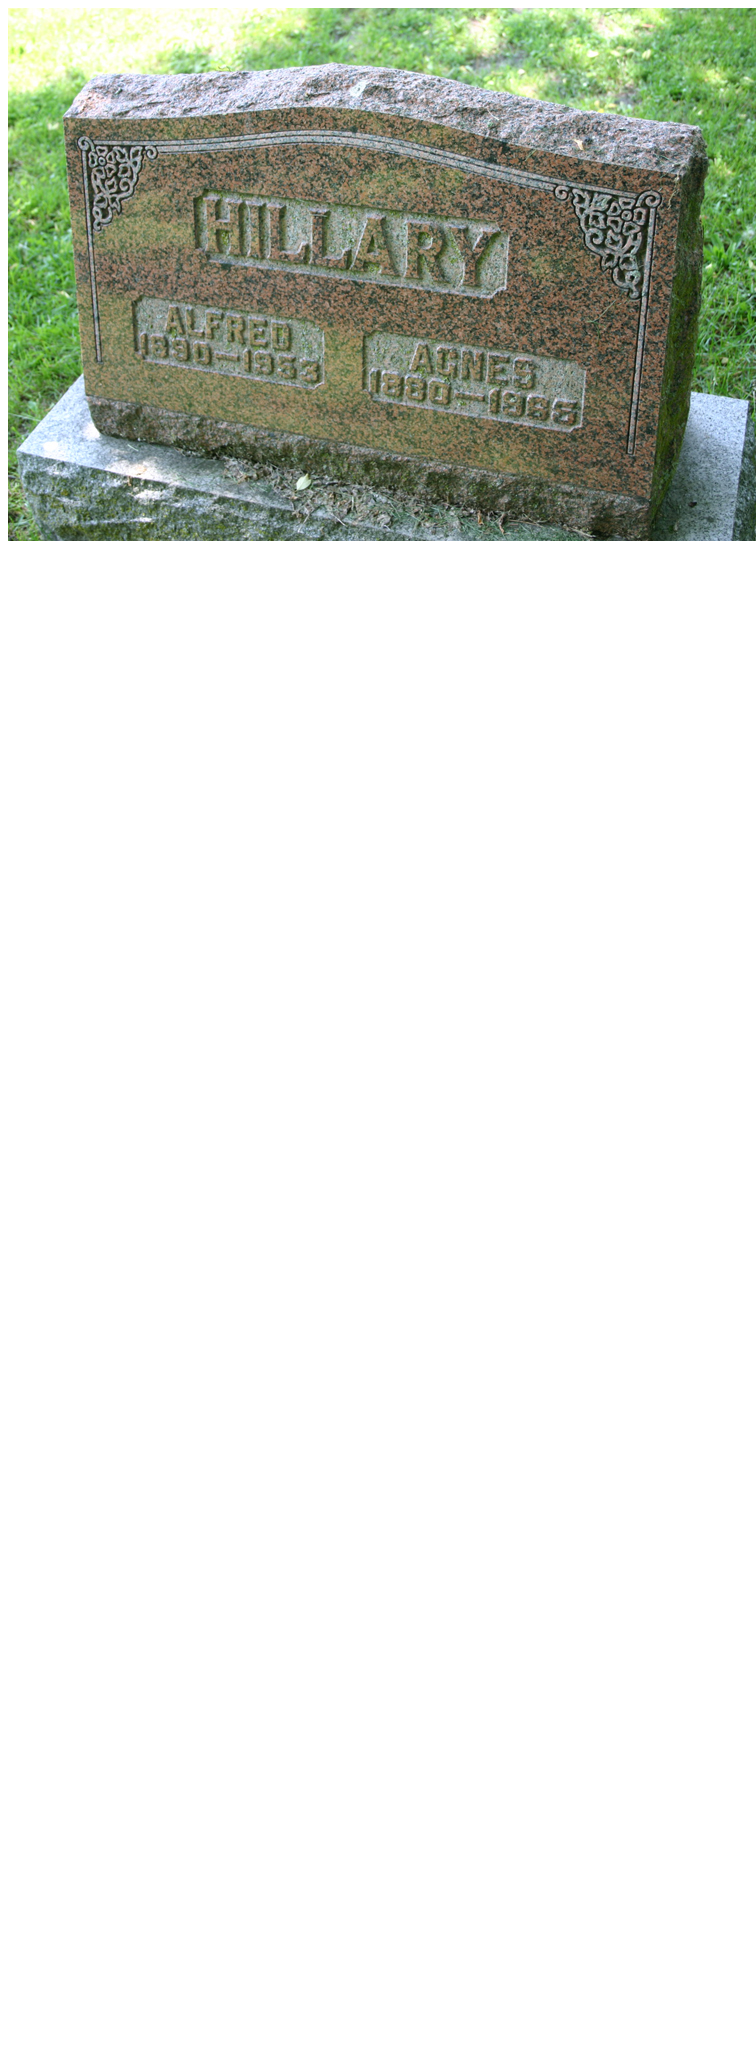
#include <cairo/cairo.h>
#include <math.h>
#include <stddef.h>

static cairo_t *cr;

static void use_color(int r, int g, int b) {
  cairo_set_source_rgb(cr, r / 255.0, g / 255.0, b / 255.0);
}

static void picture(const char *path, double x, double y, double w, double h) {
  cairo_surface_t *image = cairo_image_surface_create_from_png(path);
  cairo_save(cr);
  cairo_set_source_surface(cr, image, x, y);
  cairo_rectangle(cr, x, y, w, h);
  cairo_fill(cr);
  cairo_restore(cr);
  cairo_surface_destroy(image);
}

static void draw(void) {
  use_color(255, 255, 255);
  cairo_paint(cr);
  picture("img_01.png", 8, 8, 748, 533);
}

int main(void) {
  cairo_surface_t *surface = cairo_image_surface_create(CAIRO_FORMAT_RGB24, 756, 2049);
  cr = cairo_create(surface);
  cairo_font_options_t *options = cairo_font_options_create();
  cairo_font_options_set_hint_metrics(options, CAIRO_HINT_METRICS_OFF);
  cairo_font_options_set_hint_style(options, CAIRO_HINT_STYLE_NONE);
  cairo_set_font_options(cr, options);
  cairo_set_miter_limit(cr, 4);
  draw();
  cairo_surface_write_to_png(surface, "out.png");
  cairo_font_options_destroy(options);
  cairo_destroy(cr);
  cairo_surface_destroy(surface);
  return 0;
}
